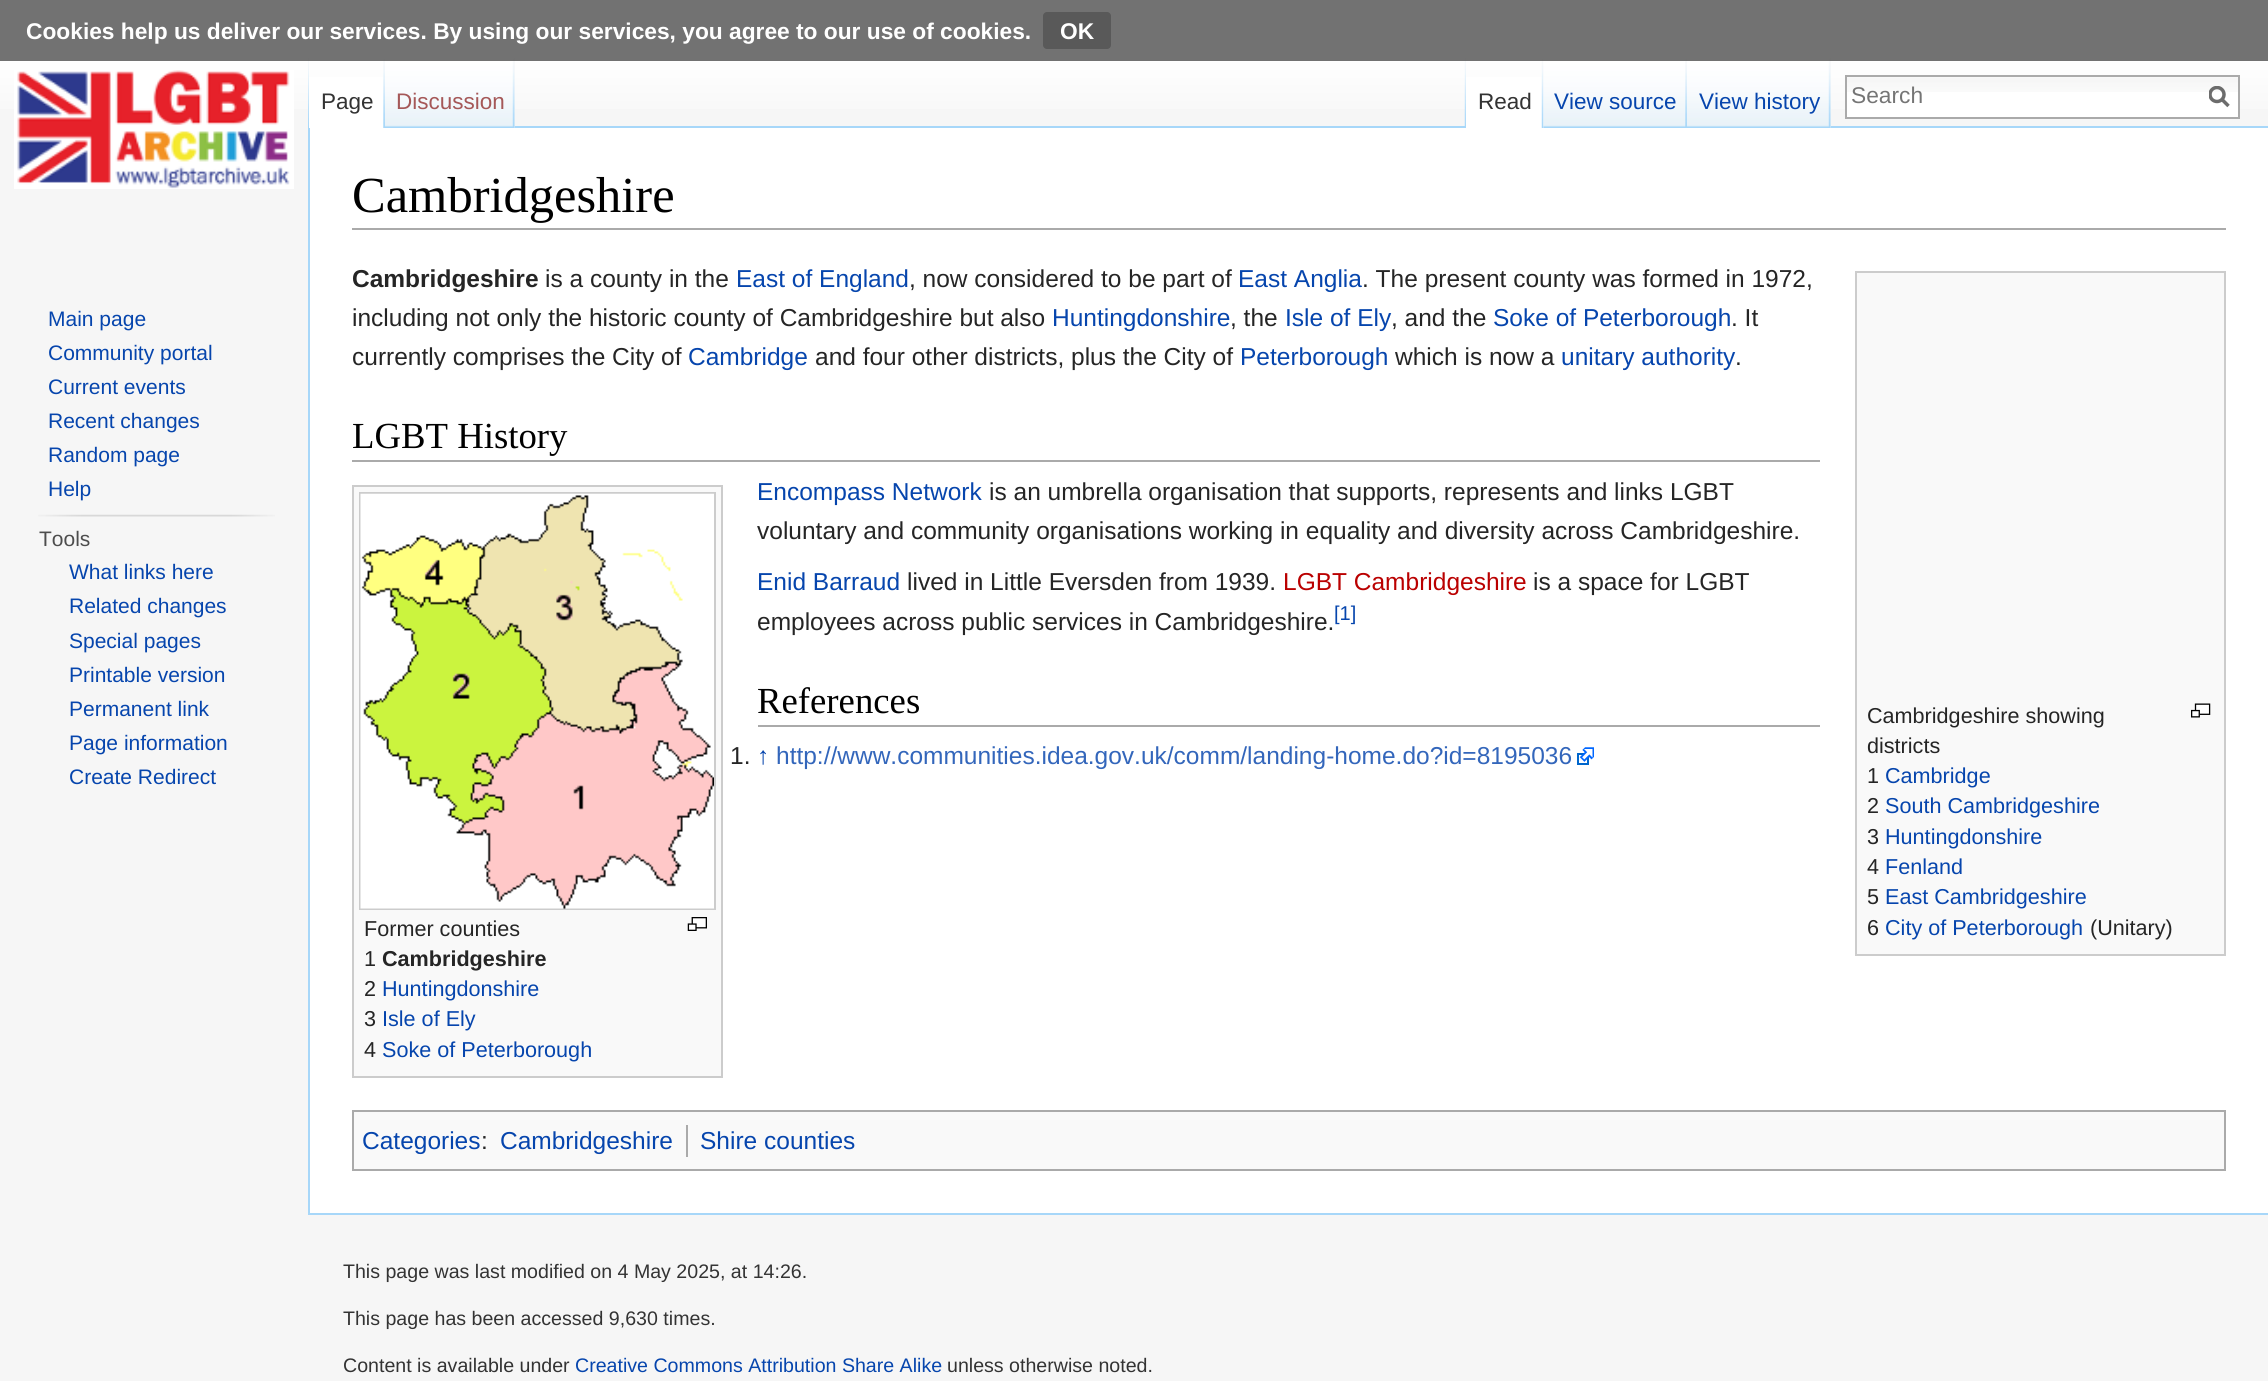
#include <cairo/cairo.h>
#include <math.h>
#include <stddef.h>

static cairo_t *cr;

static void use_color(int r, int g, int b) {
  cairo_set_source_rgb(cr, r / 255.0, g / 255.0, b / 255.0);
}

static void text(double x, double y, const char *s, const char *family, double size, int italic, int bold, int r, int g, int b) {
  cairo_select_font_face(cr, family, italic ? CAIRO_FONT_SLANT_ITALIC : CAIRO_FONT_SLANT_NORMAL,
    bold ? CAIRO_FONT_WEIGHT_BOLD : CAIRO_FONT_WEIGHT_NORMAL);
  cairo_set_font_size(cr, size);
  use_color(r, g, b);
  cairo_move_to(cr, x, y);
  cairo_show_text(cr, s);
}

static void box(double x, double y, double w, double h, int r, int g, int b) {
  use_color(r, g, b);
  cairo_rectangle(cr, x, y, w, h);
  cairo_fill(cr);
}

static void round_rect(double x, double y, double w, double h, double r) {
  cairo_new_sub_path(cr);
  cairo_arc(cr, x + w - r, y + h - r, r, 0, M_PI / 2);
  cairo_arc(cr, x + r, y + h - r, r, M_PI / 2, M_PI);
  cairo_arc(cr, x + r, y + r, r, M_PI, 1.5 * M_PI);
  cairo_arc(cr, x + w - r, y + r, r, 1.5 * M_PI, 2 * M_PI);
  cairo_close_path(cr);
}

static void picture(const char *path, double x, double y, double w, double h) {
  cairo_surface_t *image = cairo_image_surface_create_from_png(path);
  cairo_save(cr);
  cairo_set_source_surface(cr, image, x, y);
  cairo_rectangle(cr, x, y, w, h);
  cairo_fill(cr);
  cairo_restore(cr);
  cairo_surface_destroy(image);
}

static void draw(void) {
  cairo_pattern_t *gradient;
  use_color(246, 246, 246);
  cairo_paint(cr);
  gradient = cairo_pattern_create_linear(1134, -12, 1134, 128);
  cairo_pattern_add_color_stop_rgba(gradient, 0.5, 1, 1, 1, 1);
  cairo_pattern_add_color_stop_rgba(gradient, 1, 0.965, 0.965, 0.965, 1);
  cairo_set_source(cr, gradient);
  cairo_pattern_destroy(gradient);
  cairo_rectangle(cr, 0, 0, 2268, 109);
  cairo_fill(cr);
  picture("img_01.png", 308, 58, 1, 68);
  box(308, 1213, 1960, 2, 167, 215, 249);
  box(308, 126, 2, 1089, 167, 215, 249);
  box(309, 77, 76, 51, 255, 255, 255);
  picture("img_02.png", 383, 59, 2, 69);
  box(514, 58, 1, 70, 243, 243, 243);
  picture("img_03.png", 385, 58, 130, 70);
  picture("img_04.png", 512, 59, 3, 69);
  picture("img_05.png", 1464, 58, 2, 68);
  box(515, 126, 1753, 2, 167, 215, 249);
  box(1466, 77, 78, 51, 255, 255, 255);
  picture("img_06.png", 1541, 59, 3, 69);
  picture("img_07.png", 1543, 58, 144, 70);
  picture("img_08.png", 1685, 59, 2, 68);
  box(1830, 58, 1, 70, 243, 243, 243);
  picture("img_09.png", 1687, 58, 144, 70);
  picture("img_04.png", 1828, 59, 3, 69);
  cairo_set_source_rgba(cr, 0.353, 0.353, 0.353, 0.85);
  cairo_rectangle(cr, 0, 0, 2268, 61);
  cairo_fill(cr);
  use_color(89, 89, 89);
  round_rect(1043, 12, 68, 37, 4);
  cairo_fill(cr);
  box(1847, 77, 391, 40, 255, 255, 255);
  picture("img_10.png", 1847, 77, 391, 15);
  cairo_rectangle(cr, 1846, 76, 393, 42);
  use_color(170, 170, 170);
  cairo_stroke(cr);
  cairo_new_path(cr);
  cairo_move_to(cr, 2228.5, 106);
  cairo_line_to(cr, 2221.5, 99);
  use_color(108, 108, 108);
  cairo_set_line_width(cr, 3.5);
  cairo_stroke(cr);
  cairo_save(cr);
  cairo_rectangle(cr, 2209, 86, 21, 23);
  cairo_clip(cr);
  cairo_arc(cr, 2217, 94.5, 7, 0, 2 * M_PI);
  cairo_stroke(cr);
  cairo_restore(cr);
  picture("img_11.png", 14, 70, 280, 119);
  picture("img_12.png", 38, 514, 237, 3);
  box(310, 128, 1958, 1085, 255, 255, 255);
  box(352, 228, 1874, 2, 170, 170, 170);
  box(352, 460, 1468, 2, 170, 170, 170);
  box(758, 725, 1062, 2, 170, 170, 170);
  picture("img_13.png", 1577, 747, 17, 18);
  use_color(249, 249, 249);
  cairo_rectangle(cr, 1856, 272, 369, 683);
  cairo_fill_preserve(cr);
  use_color(204, 204, 204);
  cairo_set_line_width(cr, 2);
  cairo_stroke(cr);
  picture("img_14.png", 2191, 703, 20, 15);
  use_color(249, 249, 249);
  cairo_rectangle(cr, 353, 486, 369, 591);
  cairo_fill_preserve(cr);
  use_color(204, 204, 204);
  cairo_stroke(cr);
  cairo_rectangle(cr, 360, 493, 355, 416);
  cairo_stroke(cr);
  picture("img_15.png", 360, 493, 354, 416);
  picture("img_16.png", 687, 917, 20, 14);
  use_color(249, 249, 249);
  cairo_rectangle(cr, 353, 1111, 1872, 59);
  cairo_fill_preserve(cr);
  use_color(170, 170, 170);
  cairo_stroke(cr);
  box(686, 1125, 2, 32, 170, 170, 170);
  text(26, 39, "Cookies help us deliver our services. By using our services, you agree to our use of cookies.", "Liberation Sans", 22.75, 0, 1, 255, 255, 255);
  text(1060, 39, "OK", "Liberation Sans", 22.75, 0, 1, 255, 255, 255);
  text(321, 109, "Page", "Liberation Sans", 22.5, 0, 0, 51, 51, 51);
  text(396, 109, "Discussion", "Liberation Sans", 22.5, 0, 0, 165, 88, 88);
  text(1478, 109, "Read", "Liberation Sans", 22.5, 0, 0, 51, 51, 51);
  text(1554, 109, "View source", "Liberation Sans", 22.5, 0, 0, 6, 69, 173);
  text(1699, 109, "View history", "Liberation Sans", 22.5, 0, 0, 6, 69, 173);
  text(1851, 103, "Search", "Liberation Sans", 22.75, 0, 0, 117, 117, 117);
  text(48, 326, "Main page", "Liberation Sans", 21, 0, 0, 6, 69, 173);
  text(48, 360, "Community portal", "Liberation Sans", 21, 0, 0, 6, 69, 173);
  text(48, 394, "Current events", "Liberation Sans", 21, 0, 0, 6, 69, 173);
  text(48, 428, "Recent changes", "Liberation Sans", 21, 0, 0, 6, 69, 173);
  text(48, 462, "Random page", "Liberation Sans", 21, 0, 0, 6, 69, 173);
  text(48, 496, "Help", "Liberation Sans", 21, 0, 0, 6, 69, 173);
  text(39, 546, "Tools", "Liberation Sans", 21, 0, 0, 77, 77, 77);
  text(69, 579, "What links here", "Liberation Sans", 21, 0, 0, 6, 69, 173);
  text(69, 613, "Related changes", "Liberation Sans", 21, 0, 0, 6, 69, 173);
  text(69, 648, "Special pages", "Liberation Sans", 21, 0, 0, 6, 69, 173);
  text(69, 682, "Printable version", "Liberation Sans", 21, 0, 0, 6, 69, 173);
  text(69, 716, "Permanent link", "Liberation Sans", 21, 0, 0, 6, 69, 173);
  text(69, 750, "Page information", "Liberation Sans", 21, 0, 0, 6, 69, 173);
  text(69, 784, "Create Redirect", "Liberation Sans", 21, 0, 0, 6, 69, 173);
  text(352, 212, "Cambridgeshire", "Liberation Serif", 50.5, 0, 0, 0, 0, 0);
  text(352, 287, "Cambridgeshire", "Liberation Sans", 24.5, 0, 1, 37, 37, 37);
  text(545, 287, "is a county in the", "Liberation Sans", 24.5, 0, 0, 37, 37, 37);
  text(736, 287, "East of England", "Liberation Sans", 24.5, 0, 0, 6, 69, 173);
  text(909, 287, ", now considered to be part of", "Liberation Sans", 24.5, 0, 0, 37, 37, 37);
  text(1238, 287, "East Anglia", "Liberation Sans", 24.5, 0, 0, 6, 69, 173);
  text(1362, 287, ". The present county was formed in 1972,", "Liberation Sans", 24.5, 0, 0, 37, 37, 37);
  text(352, 326, "including not only the historic county of Cambridgeshire but also", "Liberation Sans", 24.5, 0, 0, 37, 37, 37);
  text(1052, 326, "Huntingdonshire", "Liberation Sans", 24.5, 0, 0, 6, 69, 173);
  text(1230, 326, ", the", "Liberation Sans", 24.5, 0, 0, 37, 37, 37);
  text(1285, 326, "Isle of Ely", "Liberation Sans", 24.5, 0, 0, 6, 69, 173);
  text(1391, 326, ", and the", "Liberation Sans", 24.5, 0, 0, 37, 37, 37);
  text(1493, 326, "Soke of Peterborough", "Liberation Sans", 24.5, 0, 0, 6, 69, 173);
  text(1731, 326, ". It", "Liberation Sans", 24.5, 0, 0, 37, 37, 37);
  text(352, 365, "currently comprises the City of", "Liberation Sans", 24.5, 0, 0, 37, 37, 37);
  text(688, 365, "Cambridge", "Liberation Sans", 24.5, 0, 0, 6, 69, 173);
  text(815, 365, "and four other districts, plus the City of", "Liberation Sans", 24.5, 0, 0, 37, 37, 37);
  text(1240, 365, "Peterborough", "Liberation Sans", 24.5, 0, 0, 6, 69, 173);
  text(1395, 365, "which is now a", "Liberation Sans", 24.5, 0, 0, 37, 37, 37);
  text(1561, 365, "unitary authority", "Liberation Sans", 24.5, 0, 0, 6, 69, 173);
  text(1735, 365, ".", "Liberation Sans", 24.5, 0, 0, 37, 37, 37);
  text(352, 448, "LGBT History", "Liberation Serif", 36.75, 0, 0, 0, 0, 0);
  text(757, 500, "Encompass Network", "Liberation Sans", 24.5, 0, 0, 6, 69, 173);
  text(989, 500, "is an umbrella organisation that supports, represents and links LGBT", "Liberation Sans", 24.5, 0, 0, 37, 37, 37);
  text(757, 539, "voluntary and community organisations working in equality and diversity across Cambridgeshire.", "Liberation Sans", 24.5, 0, 0, 37, 37, 37);
  text(757, 590, "Enid Barraud", "Liberation Sans", 24.5, 0, 0, 6, 69, 173);
  text(907, 590, "lived in Little Eversden from 1939.", "Liberation Sans", 24.5, 0, 0, 37, 37, 37);
  text(1283, 590, "LGBT Cambridgeshire", "Liberation Sans", 24.5, 0, 0, 186, 0, 0);
  text(1533, 590, "is a space for LGBT", "Liberation Sans", 24.5, 0, 0, 37, 37, 37);
  text(757, 630, "employees across public services in Cambridgeshire.", "Liberation Sans", 24.5, 0, 0, 37, 37, 37);
  text(1334, 620, "[1]", "Liberation Sans", 20, 0, 0, 6, 69, 173);
  text(757, 713, "References", "Liberation Serif", 36.75, 0, 0, 0, 0, 0);
  text(730, 764, "1.", "Liberation Sans", 24.5, 0, 0, 37, 37, 37);
  text(757, 764, "↑", "Liberation Sans", 24.5, 0, 0, 6, 69, 173);
  text(776, 764, "http://www.communities.idea.gov.uk/comm/landing-home.do?id=8195036", "Liberation Sans", 24.5, 0, 0, 51, 102, 187);
  text(1867, 723, "Cambridgeshire showing", "Liberation Sans", 21.6, 0, 0, 37, 37, 37);
  text(1867, 753, "districts", "Liberation Sans", 21.6, 0, 0, 37, 37, 37);
  text(1867, 783, "1", "Liberation Sans", 21.6, 0, 0, 37, 37, 37);
  text(1885, 783, "Cambridge", "Liberation Sans", 21.6, 0, 0, 6, 69, 173);
  text(1867, 813, "2", "Liberation Sans", 21.6, 0, 0, 37, 37, 37);
  text(1885, 813, "South Cambridgeshire", "Liberation Sans", 21.6, 0, 0, 6, 69, 173);
  text(1867, 844, "3", "Liberation Sans", 21.6, 0, 0, 37, 37, 37);
  text(1885, 844, "Huntingdonshire", "Liberation Sans", 21.6, 0, 0, 6, 69, 173);
  text(1867, 874, "4", "Liberation Sans", 21.6, 0, 0, 37, 37, 37);
  text(1885, 874, "Fenland", "Liberation Sans", 21.6, 0, 0, 6, 69, 173);
  text(1867, 904, "5", "Liberation Sans", 21.6, 0, 0, 37, 37, 37);
  text(1885, 904, "East Cambridgeshire", "Liberation Sans", 21.6, 0, 0, 6, 69, 173);
  text(1867, 935, "6", "Liberation Sans", 21.6, 0, 0, 37, 37, 37);
  text(1885, 935, "City of Peterborough", "Liberation Sans", 21.6, 0, 0, 6, 69, 173);
  text(2090, 935, "(Unitary)", "Liberation Sans", 21.6, 0, 0, 37, 37, 37);
  text(364, 936, "Former counties", "Liberation Sans", 21.6, 0, 0, 37, 37, 37);
  text(364, 966, "1", "Liberation Sans", 21.6, 0, 0, 37, 37, 37);
  text(382, 966, "Cambridgeshire", "Liberation Sans", 21.6, 0, 1, 37, 37, 37);
  text(364, 996, "2", "Liberation Sans", 21.6, 0, 0, 37, 37, 37);
  text(382, 996, "Huntingdonshire", "Liberation Sans", 21.6, 0, 0, 6, 69, 173);
  text(364, 1026, "3", "Liberation Sans", 21.6, 0, 0, 37, 37, 37);
  text(382, 1026, "Isle of Ely", "Liberation Sans", 21.6, 0, 0, 6, 69, 173);
  text(364, 1057, "4", "Liberation Sans", 21.6, 0, 0, 37, 37, 37);
  text(382, 1057, "Soke of Peterborough", "Liberation Sans", 21.6, 0, 0, 6, 69, 173);
  text(362, 1149, "Categories", "Liberation Sans", 24.5, 0, 0, 6, 69, 173);
  text(481, 1149, ":", "Liberation Sans", 24.5, 0, 0, 37, 37, 37);
  text(500, 1149, "Cambridgeshire", "Liberation Sans", 24.5, 0, 0, 6, 69, 173);
  text(700, 1149, "Shire counties", "Liberation Sans", 24.5, 0, 0, 6, 69, 173);
  text(343, 1278, "This page was last modified on 4 May 2025, at 14:26.", "Liberation Sans", 19.6, 0, 0, 51, 51, 51);
  text(343, 1325, "This page has been accessed 9,630 times.", "Liberation Sans", 19.6, 0, 0, 51, 51, 51);
  text(343, 1372, "Content is available under", "Liberation Sans", 19.6, 0, 0, 51, 51, 51);
  text(575, 1372, "Creative Commons Attribution Share Alike", "Liberation Sans", 19.6, 0, 0, 6, 69, 173);
  text(947, 1372, "unless otherwise noted.", "Liberation Sans", 19.6, 0, 0, 51, 51, 51);
}

int main(void) {
  cairo_surface_t *surface = cairo_image_surface_create(CAIRO_FORMAT_RGB24, 2268, 1381);
  cr = cairo_create(surface);
  cairo_font_options_t *options = cairo_font_options_create();
  cairo_font_options_set_hint_metrics(options, CAIRO_HINT_METRICS_OFF);
  cairo_font_options_set_hint_style(options, CAIRO_HINT_STYLE_NONE);
  cairo_set_font_options(cr, options);
  cairo_set_miter_limit(cr, 4);
  draw();
  cairo_surface_write_to_png(surface, "out.png");
  cairo_font_options_destroy(options);
  cairo_destroy(cr);
  cairo_surface_destroy(surface);
  return 0;
}
